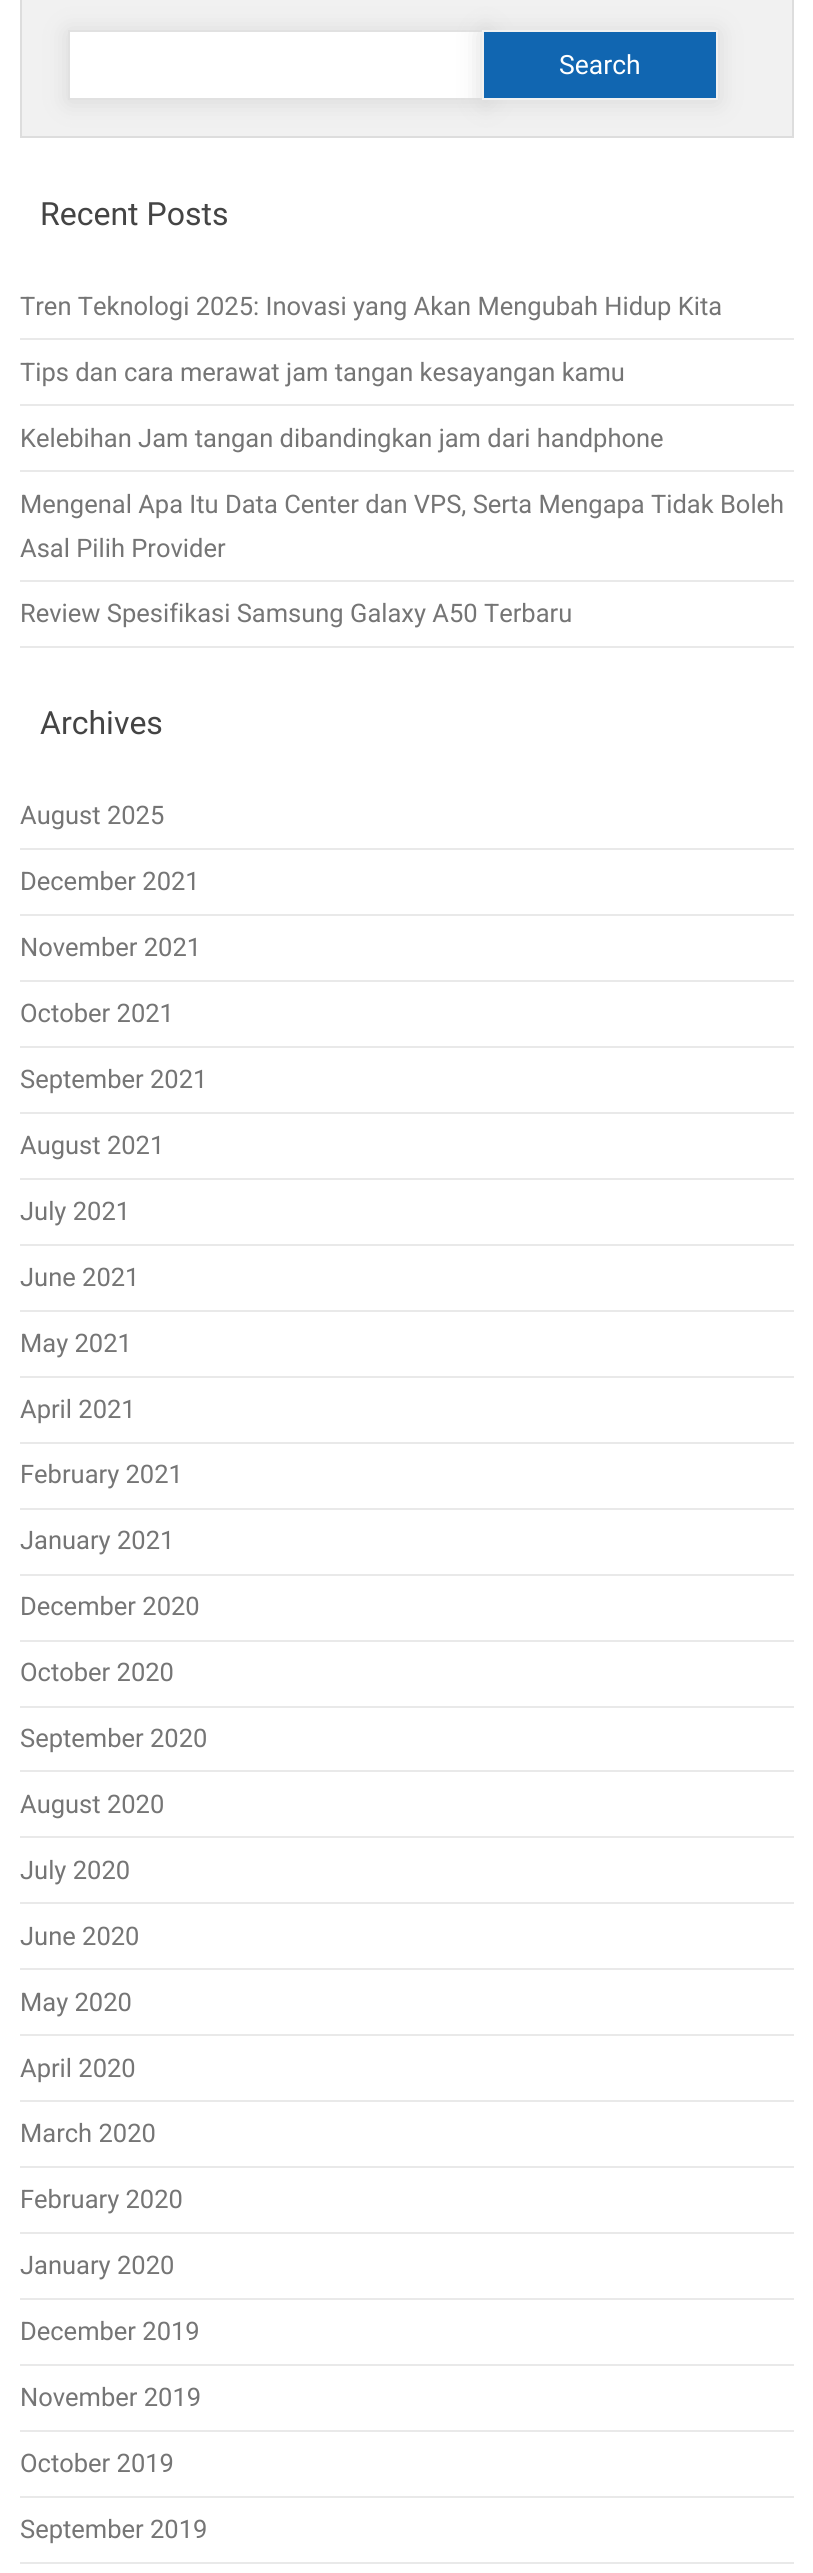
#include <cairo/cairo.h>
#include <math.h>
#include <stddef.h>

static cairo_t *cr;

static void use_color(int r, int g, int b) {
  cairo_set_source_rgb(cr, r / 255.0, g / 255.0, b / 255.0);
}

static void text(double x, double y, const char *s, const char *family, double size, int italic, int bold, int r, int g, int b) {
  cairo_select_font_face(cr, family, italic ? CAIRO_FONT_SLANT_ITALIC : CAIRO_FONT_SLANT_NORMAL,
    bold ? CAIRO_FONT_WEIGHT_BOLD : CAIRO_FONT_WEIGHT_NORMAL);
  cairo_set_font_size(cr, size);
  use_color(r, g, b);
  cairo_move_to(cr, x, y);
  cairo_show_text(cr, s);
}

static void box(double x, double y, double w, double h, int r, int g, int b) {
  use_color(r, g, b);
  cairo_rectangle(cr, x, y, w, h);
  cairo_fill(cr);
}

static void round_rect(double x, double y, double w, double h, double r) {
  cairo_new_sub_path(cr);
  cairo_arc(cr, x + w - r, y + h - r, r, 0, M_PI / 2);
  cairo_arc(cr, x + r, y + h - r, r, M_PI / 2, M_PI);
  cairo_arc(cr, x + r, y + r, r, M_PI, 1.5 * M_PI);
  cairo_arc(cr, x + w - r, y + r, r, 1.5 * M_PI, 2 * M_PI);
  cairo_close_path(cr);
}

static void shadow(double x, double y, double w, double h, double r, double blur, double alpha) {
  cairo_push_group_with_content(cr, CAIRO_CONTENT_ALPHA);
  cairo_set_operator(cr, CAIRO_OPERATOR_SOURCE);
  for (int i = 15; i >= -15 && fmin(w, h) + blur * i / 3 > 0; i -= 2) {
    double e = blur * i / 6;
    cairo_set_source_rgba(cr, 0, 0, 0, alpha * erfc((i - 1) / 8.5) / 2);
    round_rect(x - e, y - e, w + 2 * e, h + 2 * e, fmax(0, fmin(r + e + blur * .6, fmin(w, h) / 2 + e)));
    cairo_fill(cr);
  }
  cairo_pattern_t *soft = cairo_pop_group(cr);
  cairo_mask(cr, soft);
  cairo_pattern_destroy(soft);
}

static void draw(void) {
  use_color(255, 255, 255);
  cairo_paint(cr);
  use_color(241, 241, 241);
  cairo_rectangle(cr, 21, -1, 772, 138);
  cairo_fill_preserve(cr);
  use_color(221, 221, 221);
  cairo_stroke(cr);
  use_color(217, 217, 217);
  shadow(68, 32, 422, 70, 0, 12, 1);
  box(70, 32, 412, 66, 255, 255, 255);
  cairo_rectangle(cr, 69, 31, 420, 68);
  use_color(225, 225, 225);
  cairo_stroke(cr);
  use_color(217, 217, 217);
  shadow(482, 32, 236, 70, 0, 12, 1);
  use_color(17, 102, 177);
  cairo_rectangle(cr, 483, 31, 234, 68);
  cairo_fill_preserve(cr);
  use_color(241, 241, 241);
  cairo_stroke(cr);
  box(20, 338, 774, 2, 233, 233, 233);
  box(20, 404, 774, 2, 233, 233, 233);
  box(20, 470, 774, 2, 233, 233, 233);
  box(20, 580, 774, 2, 233, 233, 233);
  box(20, 646, 774, 2, 233, 233, 233);
  box(20, 848, 774, 2, 233, 233, 233);
  box(20, 914, 774, 2, 233, 233, 233);
  box(20, 980, 774, 2, 233, 233, 233);
  box(20, 1046, 774, 2, 233, 233, 233);
  box(20, 1112, 774, 2, 233, 233, 233);
  box(20, 1178, 774, 2, 233, 233, 233);
  box(20, 1244, 774, 2, 233, 233, 233);
  box(20, 1310, 774, 2, 233, 233, 233);
  box(20, 1376, 774, 2, 233, 233, 233);
  box(20, 1442, 774, 2, 233, 233, 233);
  box(20, 1508, 774, 2, 233, 233, 233);
  box(20, 1574, 774, 2, 233, 233, 233);
  box(20, 1640, 774, 2, 233, 233, 233);
  box(20, 1706, 774, 2, 233, 233, 233);
  box(20, 1770, 774, 2, 233, 233, 233);
  box(20, 1836, 774, 2, 233, 233, 233);
  box(20, 1902, 774, 2, 233, 233, 233);
  box(20, 1968, 774, 2, 233, 233, 233);
  box(20, 2034, 774, 2, 233, 233, 233);
  box(20, 2100, 774, 2, 233, 233, 233);
  box(20, 2166, 774, 2, 233, 233, 233);
  box(20, 2232, 774, 2, 233, 233, 233);
  box(20, 2298, 774, 2, 233, 233, 233);
  box(20, 2364, 774, 2, 233, 233, 233);
  box(20, 2430, 774, 2, 233, 233, 233);
  box(20, 2496, 774, 2, 233, 233, 233);
  box(20, 2562, 774, 2, 233, 233, 233);
  text(559, 74, "Search", "Roboto", 26.5, 0, 0, 255, 255, 255);
  text(40, 225, "Recent Posts", "Roboto", 32, 0, 0, 68, 68, 68);
  text(20, 315, "Tren Teknologi 2025: Inovasi yang Akan Mengubah Hidup Kita", "Roboto", 25.5, 0, 0, 117, 117, 117);
  text(20, 381, "Tips dan cara merawat jam tangan kesayangan kamu", "Roboto", 25.5, 0, 0, 117, 117, 117);
  text(20, 447, "Kelebihan Jam tangan dibandingkan jam dari handphone", "Roboto", 25.5, 0, 0, 117, 117, 117);
  text(20, 513, "Mengenal Apa Itu Data Center dan VPS, Serta Mengapa Tidak Boleh", "Roboto", 25.5, 0, 0, 117, 117, 117);
  text(20, 557, "Asal Pilih Provider", "Roboto", 25.5, 0, 0, 117, 117, 117);
  text(20, 622, "Review Spesifikasi Samsung Galaxy A50 Terbaru", "Roboto", 25.5, 0, 0, 117, 117, 117);
  text(40, 734, "Archives", "Roboto", 32, 0, 0, 68, 68, 68);
  text(20, 824, "August 2025", "Roboto", 25.5, 0, 0, 117, 117, 117);
  text(20, 890, "December 2021", "Roboto", 25.5, 0, 0, 117, 117, 117);
  text(20, 956, "November 2021", "Roboto", 25.5, 0, 0, 117, 117, 117);
  text(20, 1022, "October 2021", "Roboto", 25.5, 0, 0, 117, 117, 117);
  text(20, 1088, "September 2021", "Roboto", 25.5, 0, 0, 117, 117, 117);
  text(20, 1154, "August 2021", "Roboto", 25.5, 0, 0, 117, 117, 117);
  text(20, 1220, "July 2021", "Roboto", 25.5, 0, 0, 117, 117, 117);
  text(20, 1286, "June 2021", "Roboto", 25.5, 0, 0, 117, 117, 117);
  text(20, 1352, "May 2021", "Roboto", 25.5, 0, 0, 117, 117, 117);
  text(20, 1418, "April 2021", "Roboto", 25.5, 0, 0, 117, 117, 117);
  text(20, 1483, "February 2021", "Roboto", 25.5, 0, 0, 117, 117, 117);
  text(20, 1549, "January 2021", "Roboto", 25.5, 0, 0, 117, 117, 117);
  text(20, 1615, "December 2020", "Roboto", 25.5, 0, 0, 117, 117, 117);
  text(20, 1681, "October 2020", "Roboto", 25.5, 0, 0, 117, 117, 117);
  text(20, 1747, "September 2020", "Roboto", 25.5, 0, 0, 117, 117, 117);
  text(20, 1813, "August 2020", "Roboto", 25.5, 0, 0, 117, 117, 117);
  text(20, 1879, "July 2020", "Roboto", 25.5, 0, 0, 117, 117, 117);
  text(20, 1945, "June 2020", "Roboto", 25.5, 0, 0, 117, 117, 117);
  text(20, 2011, "May 2020", "Roboto", 25.5, 0, 0, 117, 117, 117);
  text(20, 2077, "April 2020", "Roboto", 25.5, 0, 0, 117, 117, 117);
  text(20, 2142, "March 2020", "Roboto", 25.5, 0, 0, 117, 117, 117);
  text(20, 2208, "February 2020", "Roboto", 25.5, 0, 0, 117, 117, 117);
  text(20, 2274, "January 2020", "Roboto", 25.5, 0, 0, 117, 117, 117);
  text(20, 2340, "December 2019", "Roboto", 25.5, 0, 0, 117, 117, 117);
  text(20, 2406, "November 2019", "Roboto", 25.5, 0, 0, 117, 117, 117);
  text(20, 2472, "October 2019", "Roboto", 25.5, 0, 0, 117, 117, 117);
  text(20, 2538, "September 2019", "Roboto", 25.5, 0, 0, 117, 117, 117);
}

int main(void) {
  cairo_surface_t *surface = cairo_image_surface_create(CAIRO_FORMAT_RGB24, 813, 2573);
  cr = cairo_create(surface);
  cairo_font_options_t *options = cairo_font_options_create();
  cairo_font_options_set_hint_metrics(options, CAIRO_HINT_METRICS_OFF);
  cairo_font_options_set_hint_style(options, CAIRO_HINT_STYLE_NONE);
  cairo_set_font_options(cr, options);
  cairo_set_miter_limit(cr, 4);
  draw();
  cairo_surface_write_to_png(surface, "out.png");
  cairo_font_options_destroy(options);
  cairo_destroy(cr);
  cairo_surface_destroy(surface);
  return 0;
}
